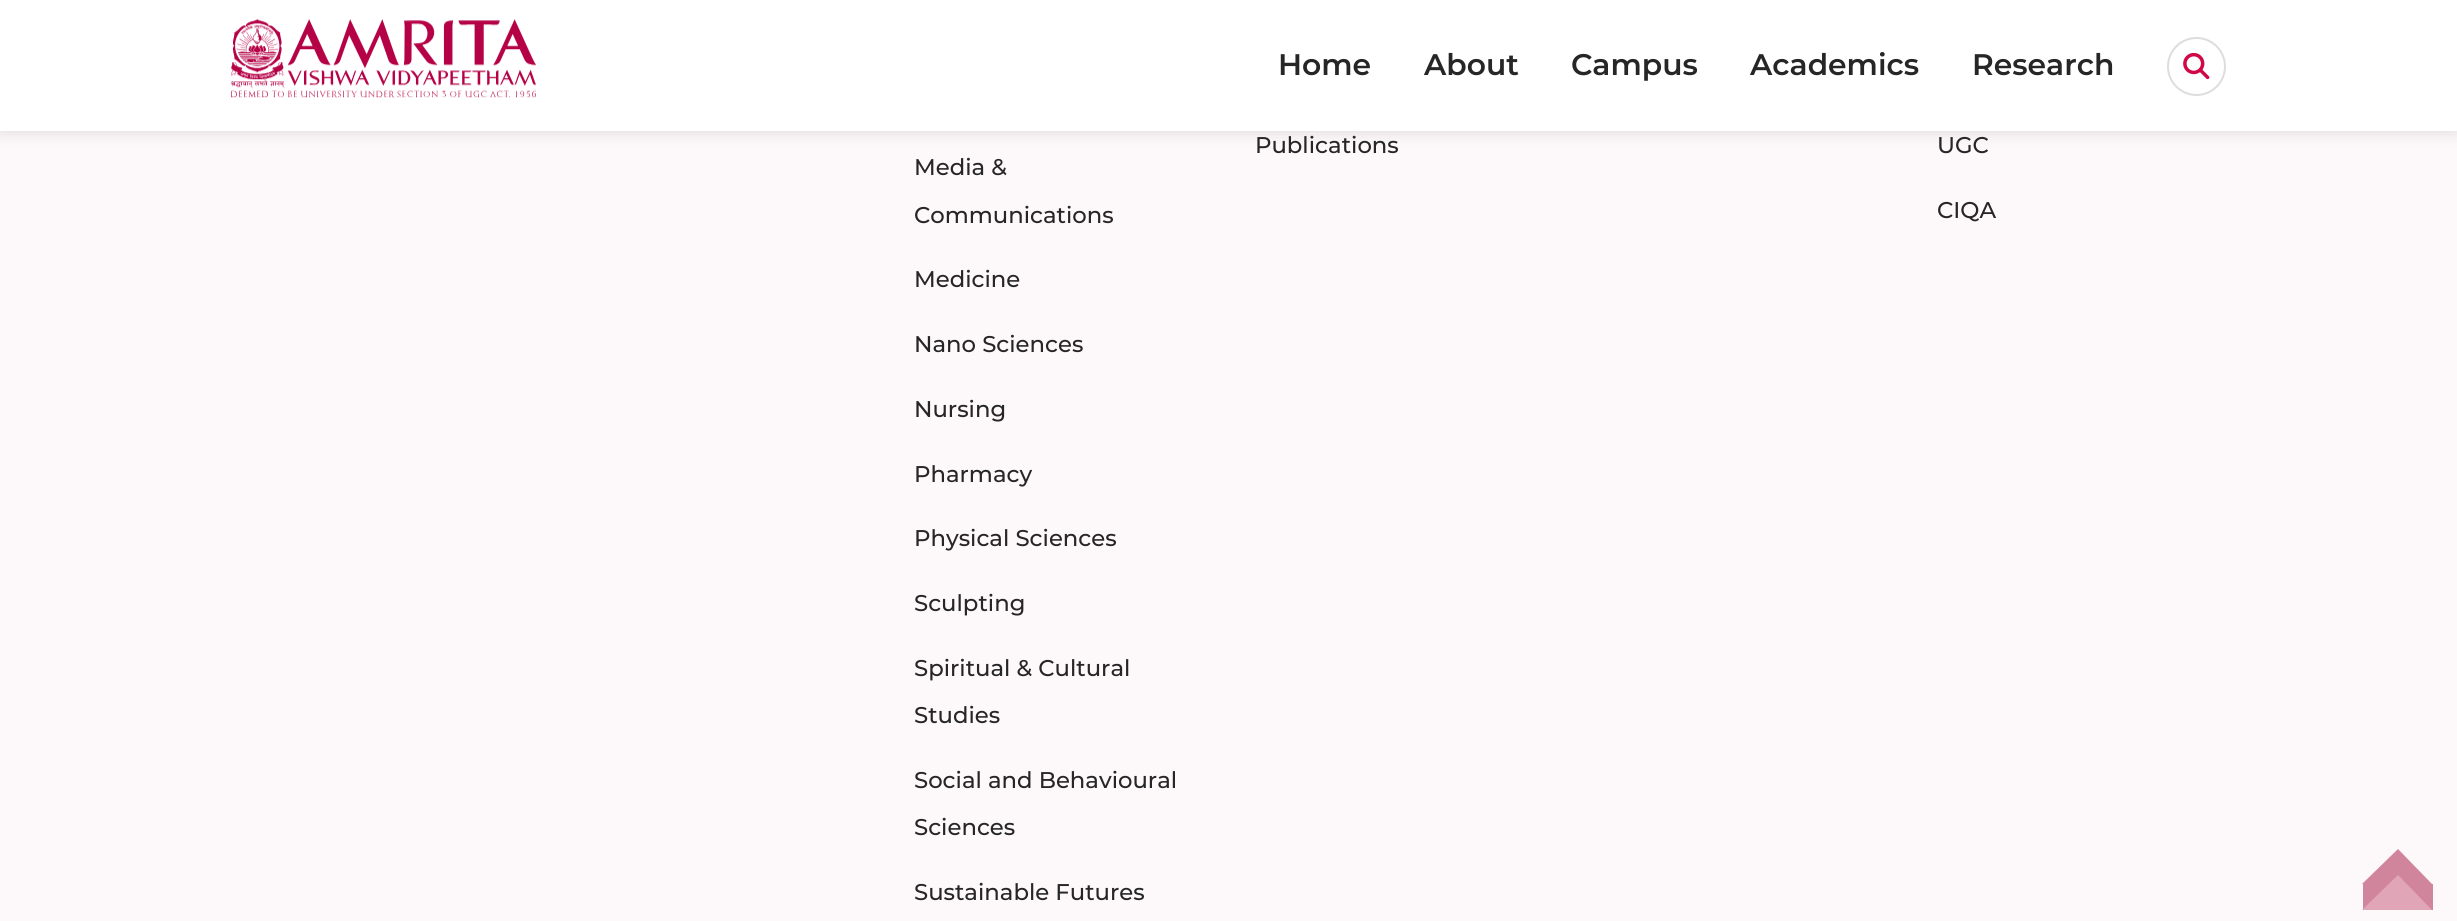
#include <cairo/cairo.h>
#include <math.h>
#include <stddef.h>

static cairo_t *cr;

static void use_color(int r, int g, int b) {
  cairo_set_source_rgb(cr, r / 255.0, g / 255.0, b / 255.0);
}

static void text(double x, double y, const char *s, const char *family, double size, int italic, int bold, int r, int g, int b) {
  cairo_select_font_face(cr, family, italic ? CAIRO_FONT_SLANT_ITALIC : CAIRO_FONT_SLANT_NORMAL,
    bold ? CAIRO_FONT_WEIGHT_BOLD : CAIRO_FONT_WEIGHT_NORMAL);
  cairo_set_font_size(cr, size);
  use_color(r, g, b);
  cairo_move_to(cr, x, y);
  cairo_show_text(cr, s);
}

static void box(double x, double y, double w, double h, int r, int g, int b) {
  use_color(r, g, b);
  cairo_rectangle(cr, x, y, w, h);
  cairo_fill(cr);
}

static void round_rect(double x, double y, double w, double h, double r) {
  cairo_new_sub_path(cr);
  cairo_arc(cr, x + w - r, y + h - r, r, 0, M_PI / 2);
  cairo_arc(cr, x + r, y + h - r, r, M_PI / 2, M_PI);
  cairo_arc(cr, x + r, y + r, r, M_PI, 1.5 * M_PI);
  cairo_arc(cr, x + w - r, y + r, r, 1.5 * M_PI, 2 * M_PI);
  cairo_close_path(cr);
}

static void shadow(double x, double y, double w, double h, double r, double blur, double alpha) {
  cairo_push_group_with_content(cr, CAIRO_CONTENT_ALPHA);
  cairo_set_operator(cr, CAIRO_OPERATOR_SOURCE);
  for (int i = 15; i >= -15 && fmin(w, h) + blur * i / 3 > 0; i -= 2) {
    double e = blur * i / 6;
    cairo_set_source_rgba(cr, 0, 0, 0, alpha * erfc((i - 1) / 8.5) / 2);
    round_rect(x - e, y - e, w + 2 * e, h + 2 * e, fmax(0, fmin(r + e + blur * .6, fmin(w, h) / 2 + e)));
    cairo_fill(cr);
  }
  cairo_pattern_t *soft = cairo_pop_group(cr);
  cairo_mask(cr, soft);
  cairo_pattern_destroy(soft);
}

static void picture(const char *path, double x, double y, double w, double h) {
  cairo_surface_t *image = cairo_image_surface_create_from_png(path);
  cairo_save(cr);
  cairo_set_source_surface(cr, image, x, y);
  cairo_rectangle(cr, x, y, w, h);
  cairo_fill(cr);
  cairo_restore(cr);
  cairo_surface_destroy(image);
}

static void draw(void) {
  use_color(253, 248, 249);
  cairo_paint(cr);
  use_color(0, 0, 0);
  shadow(0, 0, 2457, 131, 0, 9, 0.13);
  box(0, 0, 2457, 131, 255, 255, 255);
  picture("img_01.png", 231, 19, 305, 80);
  picture("img_02.png", 2183, 53, 27, 27);
  cairo_arc(cr, 2196.5, 66.5, 28.5, 0, 2 * M_PI);
  use_color(221, 221, 221);
  cairo_stroke(cr);
  box(2363, 884, 70, 26, 209, 133, 156);
  cairo_new_path(cr);
  cairo_move_to(cr, 2432, 884);
  cairo_line_to(cr, 2362, 884);
  cairo_line_to(cr, 2398, 849);
  cairo_close_path(cr);
  cairo_fill(cr);
  use_color(224, 166, 183);
  cairo_new_path(cr);
  cairo_move_to(cr, 2432, 910);
  cairo_line_to(cr, 2362, 910);
  cairo_line_to(cr, 2398, 875);
  cairo_close_path(cr);
  cairo_fill(cr);
  text(1278, 75, "Home", "Montserrat SemiBold", 29.75, 0, 0, 38, 38, 38);
  text(1424, 75, "About", "Montserrat SemiBold", 29.75, 0, 0, 38, 38, 38);
  text(1571, 75, "Campus", "Montserrat SemiBold", 29.75, 0, 0, 38, 38, 38);
  text(1750, 75, "Academics", "Montserrat SemiBold", 29.75, 0, 0, 38, 38, 38);
  text(1972, 75, "Research", "Montserrat SemiBold", 29.75, 0, 0, 38, 38, 38);
  text(914, 175, "Media &", "Montserrat Medium", 22.75, 0, 0, 38, 38, 38);
  text(914, 223, "Communications", "Montserrat Medium", 22.75, 0, 0, 38, 38, 38);
  text(914, 287, "Medicine", "Montserrat Medium", 22.75, 0, 0, 38, 38, 38);
  text(914, 352, "Nano Sciences", "Montserrat Medium", 22.75, 0, 0, 38, 38, 38);
  text(914, 417, "Nursing", "Montserrat Medium", 22.75, 0, 0, 38, 38, 38);
  text(914, 482, "Pharmacy", "Montserrat Medium", 22.75, 0, 0, 38, 38, 38);
  text(914, 546, "Physical Sciences", "Montserrat Medium", 22.75, 0, 0, 38, 38, 38);
  text(914, 611, "Sculpting", "Montserrat Medium", 22.75, 0, 0, 38, 38, 38);
  text(914, 676, "Spiritual & Cultural", "Montserrat Medium", 22.75, 0, 0, 38, 38, 38);
  text(914, 723, "Studies", "Montserrat Medium", 22.75, 0, 0, 38, 38, 38);
  text(914, 788, "Social and Behavioural", "Montserrat Medium", 22.75, 0, 0, 38, 38, 38);
  text(914, 835, "Sciences", "Montserrat Medium", 22.75, 0, 0, 38, 38, 38);
  text(914, 900, "Sustainable Futures", "Montserrat Medium", 22.75, 0, 0, 38, 38, 38);
  text(1255, 153, "Publications", "Montserrat Medium", 22.75, 0, 0, 38, 38, 38);
  text(1937, 153, "UGC", "Montserrat Medium", 22.75, 0, 0, 38, 38, 38);
  text(1937, 218, "CIQA", "Montserrat Medium", 22.75, 0, 0, 38, 38, 38);
}

int main(void) {
  cairo_surface_t *surface = cairo_image_surface_create(CAIRO_FORMAT_RGB24, 2457, 921);
  cr = cairo_create(surface);
  cairo_font_options_t *options = cairo_font_options_create();
  cairo_font_options_set_hint_metrics(options, CAIRO_HINT_METRICS_OFF);
  cairo_font_options_set_hint_style(options, CAIRO_HINT_STYLE_NONE);
  cairo_set_font_options(cr, options);
  cairo_set_miter_limit(cr, 4);
  draw();
  cairo_surface_write_to_png(surface, "out.png");
  cairo_font_options_destroy(options);
  cairo_destroy(cr);
  cairo_surface_destroy(surface);
  return 0;
}
